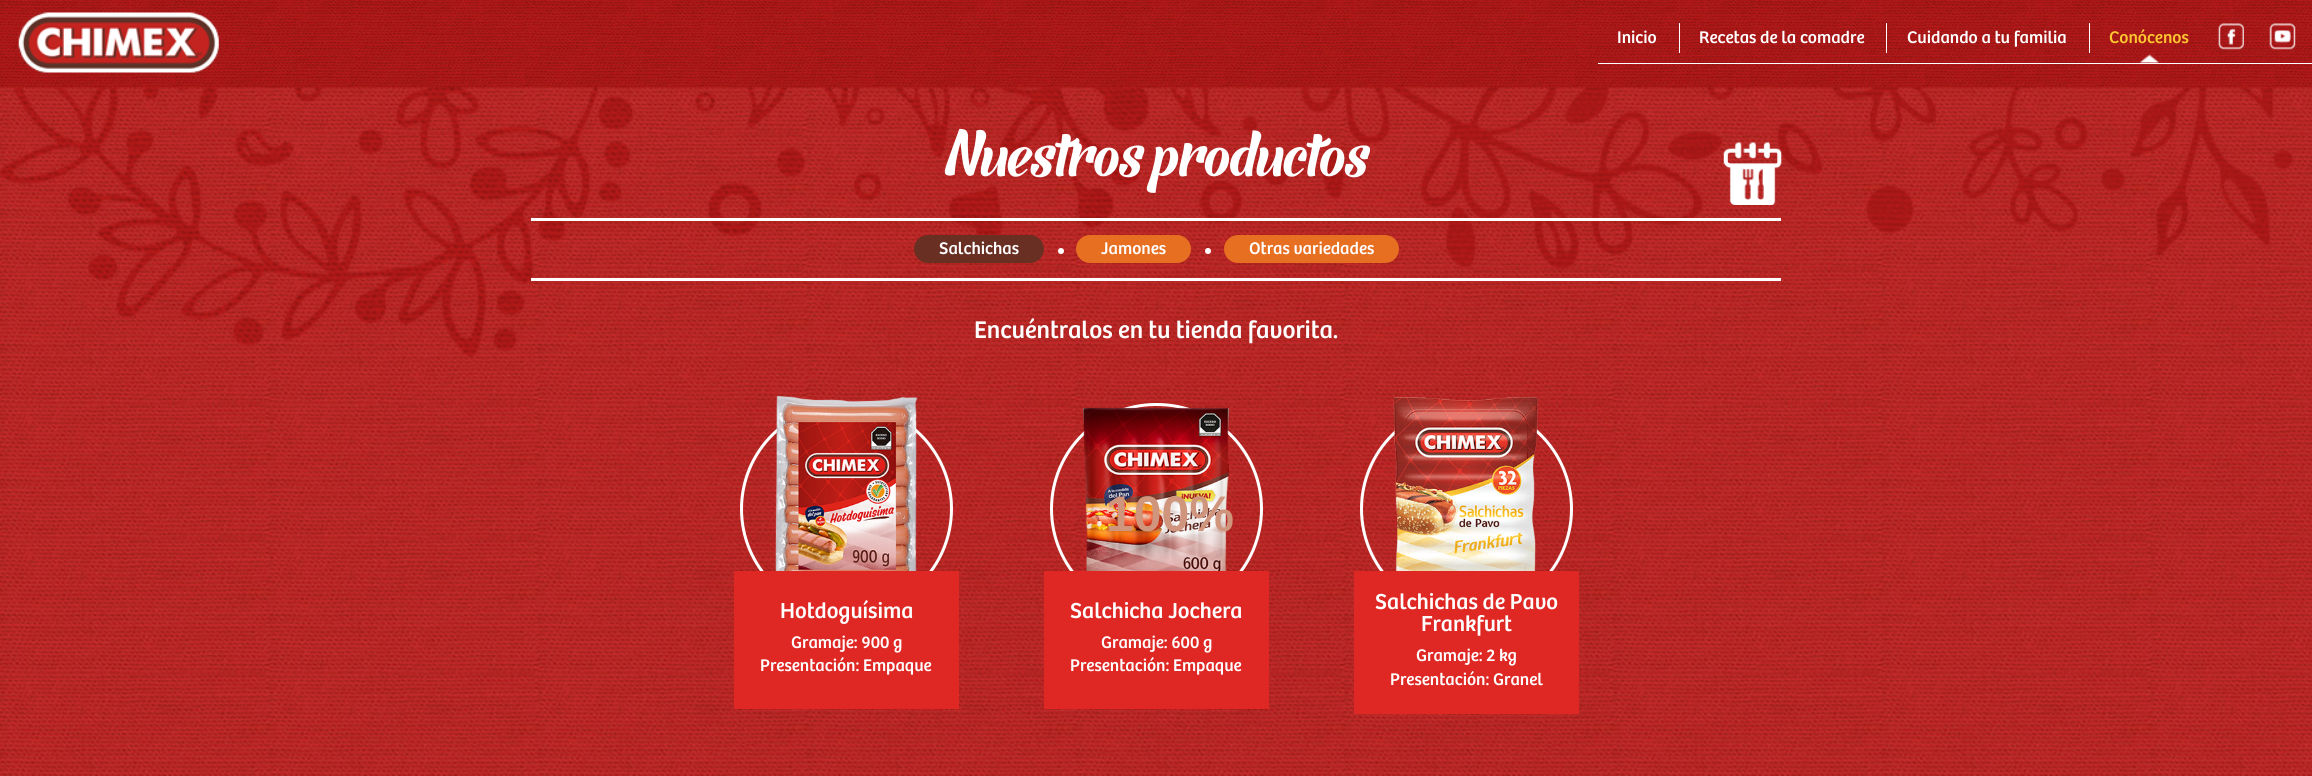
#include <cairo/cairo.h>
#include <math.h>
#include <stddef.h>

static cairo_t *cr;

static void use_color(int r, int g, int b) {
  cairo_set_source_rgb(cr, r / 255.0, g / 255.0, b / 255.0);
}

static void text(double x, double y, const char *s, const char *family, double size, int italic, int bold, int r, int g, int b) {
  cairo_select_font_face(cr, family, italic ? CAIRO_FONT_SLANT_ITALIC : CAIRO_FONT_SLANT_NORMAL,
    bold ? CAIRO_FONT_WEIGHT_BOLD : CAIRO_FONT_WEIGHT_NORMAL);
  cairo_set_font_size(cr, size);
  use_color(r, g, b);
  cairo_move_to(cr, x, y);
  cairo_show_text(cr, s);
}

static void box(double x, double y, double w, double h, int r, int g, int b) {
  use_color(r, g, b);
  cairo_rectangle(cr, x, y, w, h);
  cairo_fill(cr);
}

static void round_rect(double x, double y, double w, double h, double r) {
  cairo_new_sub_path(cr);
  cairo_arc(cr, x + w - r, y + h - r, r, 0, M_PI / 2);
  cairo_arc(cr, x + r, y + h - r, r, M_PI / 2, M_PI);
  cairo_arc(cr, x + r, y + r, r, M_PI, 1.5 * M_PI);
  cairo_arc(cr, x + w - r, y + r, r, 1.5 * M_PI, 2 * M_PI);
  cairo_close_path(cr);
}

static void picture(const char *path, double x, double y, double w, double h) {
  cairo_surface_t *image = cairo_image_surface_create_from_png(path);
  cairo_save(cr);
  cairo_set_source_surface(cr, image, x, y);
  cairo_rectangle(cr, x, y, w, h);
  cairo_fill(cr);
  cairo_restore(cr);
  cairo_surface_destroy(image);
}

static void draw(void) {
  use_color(255, 255, 255);
  cairo_paint(cr);
  picture("img_01.png", 0, 87, 2312, 689);
  picture("img_07.png", 0, 87, 2293, 270);
  picture("img_02.png", 0, 0, 2312, 88);
  picture("img_03.png", 18, 12, 201, 61);
  box(1598, 63, 714, 1, 255, 255, 255);
  box(1679, 23, 1, 30, 255, 255, 255);
  box(1886, 23, 1, 30, 255, 255, 255);
  box(2089, 23, 1, 30, 255, 255, 255);
  picture("img_04.png", 2139, 54, 20, 9);
  picture("img_05.png", 2218, 23, 26, 27);
  picture("img_06.png", 2269, 23, 27, 27);
  picture("img_08.png", 1723, 142, 59, 63);
  box(531, 218, 1250, 3, 255, 255, 255);
  box(531, 278, 1250, 3, 255, 255, 255);
  use_color(105, 47, 35);
  round_rect(914, 235, 130, 28, 14);
  cairo_fill(cr);
  use_color(255, 255, 255);
  cairo_arc(cr, 1061, 251, 3, 0, 2 * M_PI);
  cairo_fill(cr);
  use_color(231, 111, 34);
  round_rect(1076, 235, 115, 28, 14);
  cairo_fill(cr);
  use_color(255, 255, 255);
  cairo_arc(cr, 1208, 251, 3, 0, 2 * M_PI);
  cairo_fill(cr);
  use_color(231, 111, 34);
  round_rect(1224, 235, 175, 28, 14);
  cairo_fill(cr);
  round_rect(741.5, 404.5, 210, 209, 104.5);
  use_color(255, 255, 255);
  cairo_set_line_width(cr, 3);
  cairo_stroke(cr);
  picture("img_09.png", 775, 396, 143, 175);
  box(734, 571, 225, 138, 223, 40, 36);
  round_rect(1051.5, 404.5, 210, 209, 104.5);
  use_color(255, 255, 255);
  cairo_stroke(cr);
  picture("img_10.png", 1083, 407, 146, 164);
  box(1044, 571, 225, 138, 223, 40, 36);
  round_rect(1361.5, 404.5, 210, 209, 104.5);
  use_color(255, 255, 255);
  cairo_stroke(cr);
  picture("img_11.png", 1393, 397, 145, 174);
  box(1354, 571, 225, 143, 223, 40, 36);
  text(1617, 43, "Inicio", "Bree", 17.5, 0, 0, 255, 255, 255);
  text(1699, 43, "Recetas de la comadre", "Bree", 17.5, 0, 0, 255, 255, 255);
  text(1907, 43, "Cuidando a tu familia", "Bree", 17.5, 0, 0, 255, 255, 255);
  text(2109, 43, "Conócenos", "Bree", 17.5, 0, 0, 255, 198, 47);
  text(944, 176, "Nuestros productos", "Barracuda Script", 55, 0, 0, 255, 255, 255);
  text(939, 254, "Salchichas", "Bree", 17.5, 0, 0, 255, 255, 255);
  text(1101, 254, "Jamones", "Bree", 17.5, 0, 0, 255, 255, 255);
  text(1249, 254, "Otras variedades", "Bree", 17.5, 0, 0, 255, 255, 255);
  text(974, 338, "Encuéntralos en tu tienda favorita.", "Bree", 25, 0, 0, 255, 255, 255);
  text(780, 618, "Hotdoguísima", "Bree", 22.5, 0, 0, 255, 255, 255);
  text(791, 648, "Gramaje: 900 g", "Bree", 17.5, 0, 0, 255, 255, 255);
  text(760, 671, "Presentación: Empaque", "Bree", 17.5, 0, 0, 255, 255, 255);
  text(1070, 618, "Salchicha Jochera", "Bree", 22.5, 0, 0, 255, 255, 255);
  text(1101, 648, "Gramaje: 600 g", "Bree", 17.5, 0, 0, 255, 255, 255);
  text(1070, 671, "Presentación: Empaque", "Bree", 17.5, 0, 0, 255, 255, 255);
  text(1375, 609, "Salchichas de Pavo", "Bree", 22.5, 0, 0, 255, 255, 255);
  text(1421, 631, "Frankfurt", "Bree", 22.5, 0, 0, 255, 255, 255);
  text(1416, 661, "Gramaje: 2 kg", "Bree", 17.5, 0, 0, 255, 255, 255);
  text(1390, 685, "Presentación: Granel", "Bree", 17.5, 0, 0, 255, 255, 255);
  text(1106, 531, "100%", "Liberation Sans", 50, 0, 1, 208, 149, 125);
}

int main(void) {
  cairo_surface_t *surface = cairo_image_surface_create(CAIRO_FORMAT_RGB24, 2312, 776);
  cr = cairo_create(surface);
  cairo_font_options_t *options = cairo_font_options_create();
  cairo_font_options_set_hint_metrics(options, CAIRO_HINT_METRICS_OFF);
  cairo_font_options_set_hint_style(options, CAIRO_HINT_STYLE_NONE);
  cairo_set_font_options(cr, options);
  cairo_set_miter_limit(cr, 4);
  draw();
  cairo_surface_write_to_png(surface, "out.png");
  cairo_font_options_destroy(options);
  cairo_destroy(cr);
  cairo_surface_destroy(surface);
  return 0;
}
